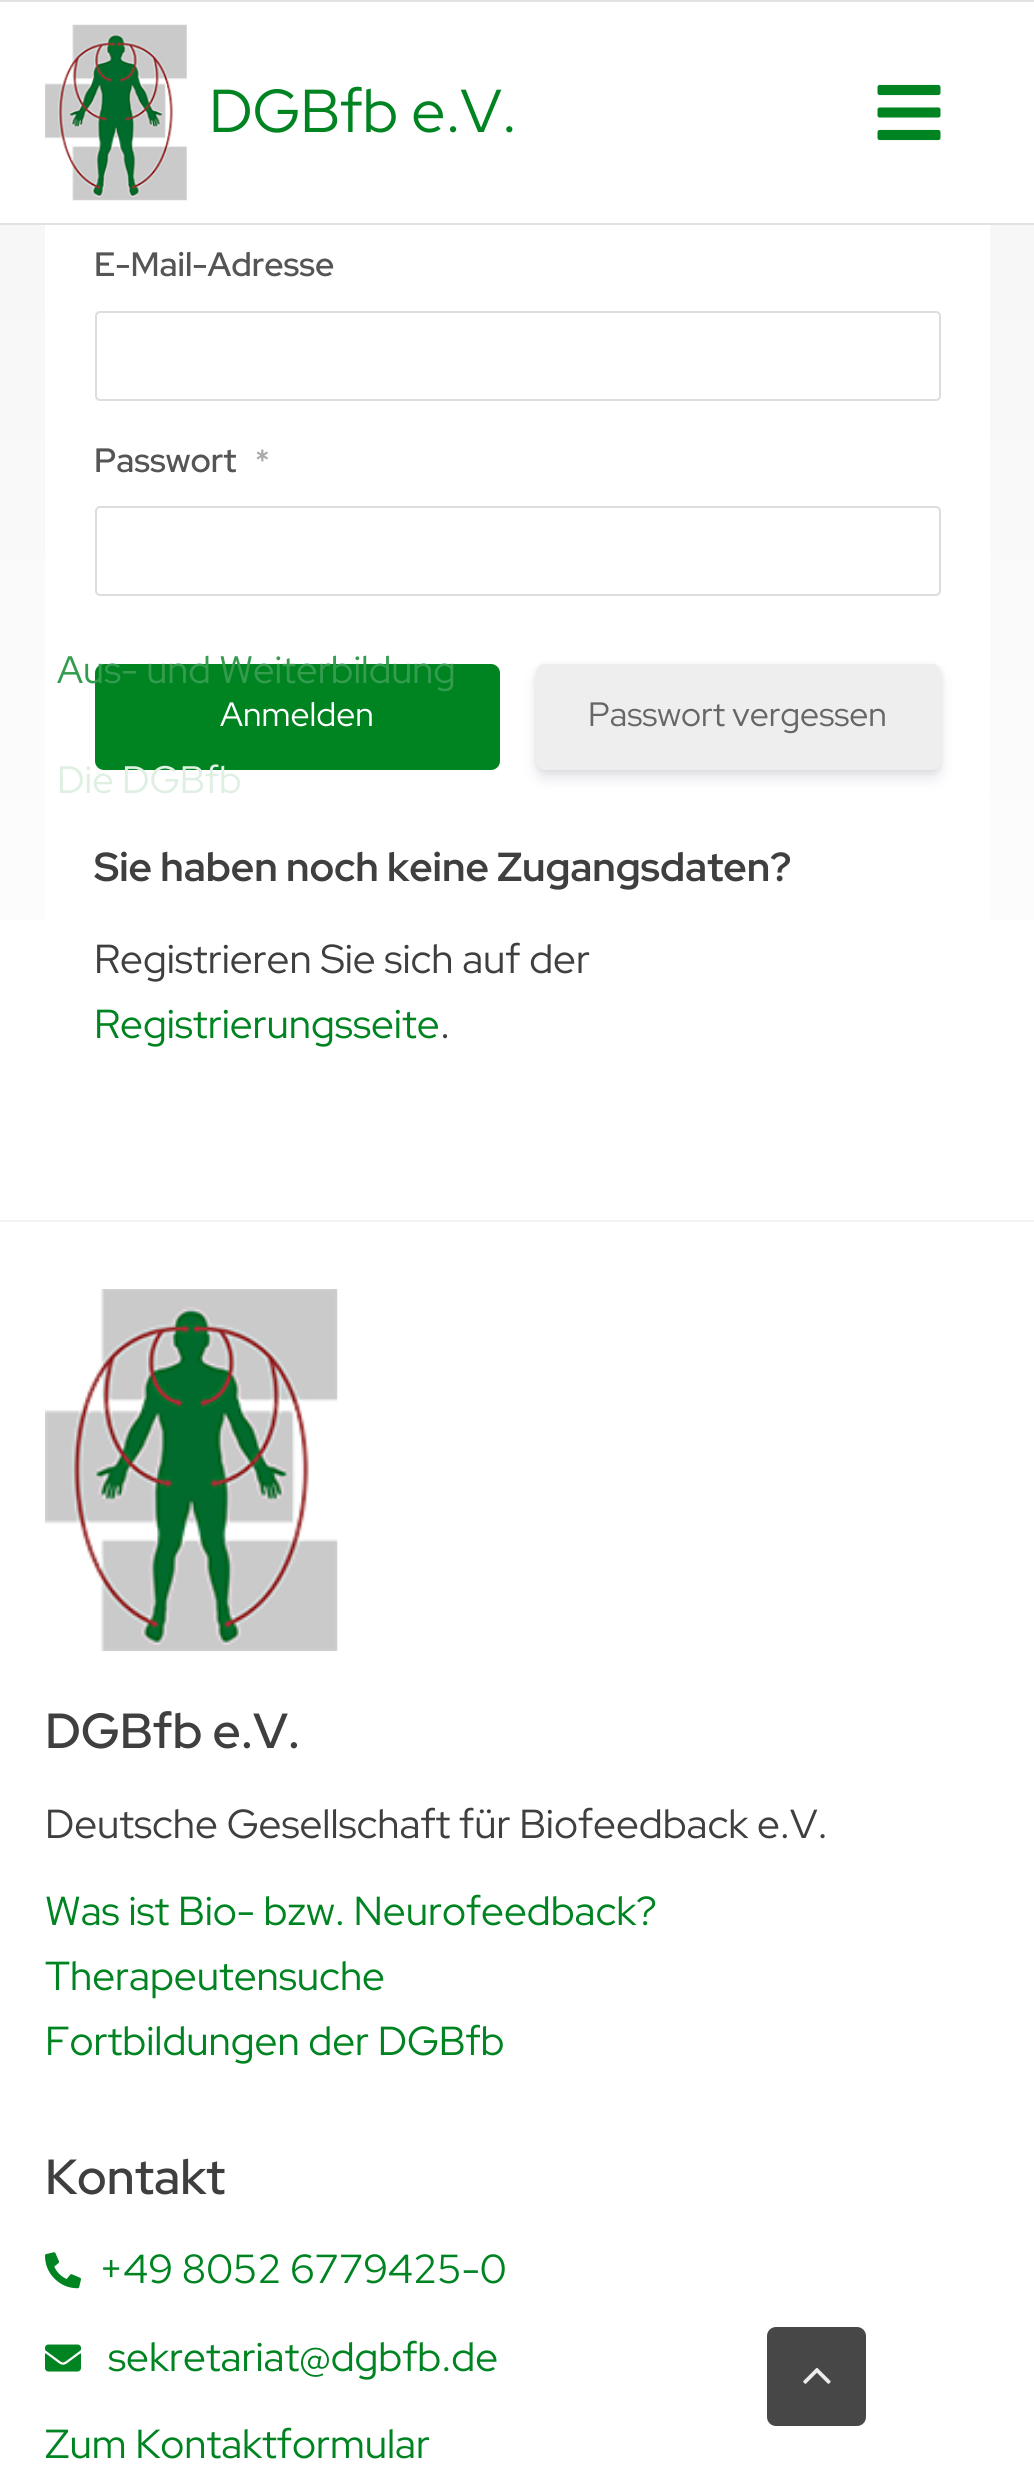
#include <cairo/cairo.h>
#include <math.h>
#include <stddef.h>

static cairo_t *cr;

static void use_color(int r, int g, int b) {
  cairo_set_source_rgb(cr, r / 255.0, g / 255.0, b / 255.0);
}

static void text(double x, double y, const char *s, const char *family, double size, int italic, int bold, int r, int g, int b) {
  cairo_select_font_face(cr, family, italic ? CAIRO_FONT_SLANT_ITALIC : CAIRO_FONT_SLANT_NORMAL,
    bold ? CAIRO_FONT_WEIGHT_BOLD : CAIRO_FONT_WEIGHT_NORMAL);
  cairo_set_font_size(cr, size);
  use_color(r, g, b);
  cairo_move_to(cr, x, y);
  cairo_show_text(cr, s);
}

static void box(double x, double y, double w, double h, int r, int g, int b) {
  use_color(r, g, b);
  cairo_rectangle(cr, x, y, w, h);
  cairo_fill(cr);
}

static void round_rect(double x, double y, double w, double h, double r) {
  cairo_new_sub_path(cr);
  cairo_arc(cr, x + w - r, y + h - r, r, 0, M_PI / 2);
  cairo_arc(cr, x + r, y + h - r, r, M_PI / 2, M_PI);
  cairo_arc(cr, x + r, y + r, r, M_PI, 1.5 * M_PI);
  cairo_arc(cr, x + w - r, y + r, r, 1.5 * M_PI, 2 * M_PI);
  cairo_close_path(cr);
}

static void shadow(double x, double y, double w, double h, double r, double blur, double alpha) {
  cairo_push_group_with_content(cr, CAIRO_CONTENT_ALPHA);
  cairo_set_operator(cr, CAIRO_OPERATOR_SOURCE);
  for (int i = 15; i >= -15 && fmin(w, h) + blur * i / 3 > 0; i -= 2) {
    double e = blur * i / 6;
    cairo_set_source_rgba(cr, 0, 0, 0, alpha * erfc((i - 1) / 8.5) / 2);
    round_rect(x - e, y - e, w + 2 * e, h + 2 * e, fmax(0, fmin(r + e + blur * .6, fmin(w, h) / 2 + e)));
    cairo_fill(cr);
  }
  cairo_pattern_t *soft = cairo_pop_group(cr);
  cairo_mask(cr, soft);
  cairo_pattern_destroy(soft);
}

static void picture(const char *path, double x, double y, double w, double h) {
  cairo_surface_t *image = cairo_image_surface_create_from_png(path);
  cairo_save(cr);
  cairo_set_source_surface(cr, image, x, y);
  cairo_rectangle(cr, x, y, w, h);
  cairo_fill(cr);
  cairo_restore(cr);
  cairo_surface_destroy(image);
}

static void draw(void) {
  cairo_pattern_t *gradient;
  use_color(255, 255, 255);
  cairo_paint(cr);
  box(0, 0, 1034, 2, 226, 226, 226);
  box(0, 223, 1034, 2, 226, 226, 226);
  picture("img_01.png", 45, 24, 142, 177);
  picture("img_02.png", 877, 84, 64, 57);
  gradient = cairo_pattern_create_linear(517, -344, 518, 1220);
  cairo_pattern_add_color_stop_rgba(gradient, 0, 0.949, 0.949, 0.949, 1);
  cairo_pattern_add_color_stop_rgba(gradient, 1, 1, 1, 1, 1);
  cairo_set_source(cr, gradient);
  cairo_pattern_destroy(gradient);
  cairo_rectangle(cr, 0, 225, 1034, 695);
  cairo_fill(cr);
  box(45, 225, 945, 695, 255, 255, 255);
  round_rect(96, 312, 844, 88, 4);
  use_color(221, 221, 221);
  cairo_stroke(cr);
  round_rect(96, 507, 844, 88, 4);
  cairo_stroke(cr);
  use_color(0, 131, 33);
  round_rect(95, 664, 405, 106, 9);
  cairo_fill(cr);
  use_color(0, 0, 0);
  shadow(536, 666, 405, 106, 9, 3.5, 0.08);
  use_color(50, 50, 93);
  shadow(536, 673, 405, 106, 9, 7, 0.11);
  use_color(238, 238, 238);
  round_rect(536, 664, 405, 106, 9);
  cairo_fill(cr);
  box(0, 1220, 1034, 2, 242, 242, 242);
  picture("img_03.png", 45, 1289, 293, 363);
  picture("img_04.png", 45, 2252, 36, 37);
  picture("img_05.png", 45, 2344, 36, 28);
  use_color(71, 71, 71);
  round_rect(767, 2327, 99, 99, 9);
  cairo_fill(cr);
  picture("img_06.png", 803, 2367, 28, 17);
  text(209, 132, "DGBfb e.V.", "Red Hat Display", 60.5, 0, 0, 0, 131, 33);
  text(57, 683, "Aus- und Weiterbildung", "Red Hat Display", 38.25, 0, 0, 52, 156, 78);
  text(57, 793, "Die DGBfb", "Red Hat Display", 38.25, 0, 0, 223, 240, 227);
  text(94, 276, "E-Mail-Adresse", "Red Hat Display SemiBold", 33.75, 0, 0, 85, 85, 85);
  text(94, 472, "Passwort", "Red Hat Display SemiBold", 33.75, 0, 0, 85, 85, 85);
  text(255, 472, "*", "Red Hat Display SemiBold", 32, 0, 0, 170, 170, 170);
  text(220, 726, "Anmelden", "Red Hat Display", 33.75, 0, 0, 255, 255, 255);
  text(588, 726, "Passwort vergessen", "Red Hat Display", 33.75, 0, 0, 102, 102, 102);
  text(94, 881, "Sie haben noch keine Zugangsdaten?", "Red Hat Display", 40.5, 0, 1, 63, 63, 63);
  text(94, 973, "Registrieren Sie sich auf der", "Red Hat Display", 40.5, 0, 0, 63, 63, 63);
  text(94, 1038, "Registrierungsseite", "Red Hat Display", 40.5, 0, 0, 0, 131, 33);
  text(440, 1038, ".", "Red Hat Display", 40.5, 0, 0, 63, 63, 63);
  text(45, 1748, "DGBfb e.V.", "Red Hat Display SemiBold", 49.25, 0, 0, 63, 63, 63);
  text(45, 1838, "Deutsche Gesellschaft für Biofeedback e.V.", "Red Hat Display", 40.5, 0, 0, 63, 63, 63);
  text(45, 1925, "Was ist Bio- bzw. Neurofeedback?", "Red Hat Display", 40.5, 0, 0, 0, 131, 33);
  text(45, 1990, "Therapeutensuche", "Red Hat Display", 40.5, 0, 0, 0, 131, 33);
  text(45, 2055, "Fortbildungen der DGBfb", "Red Hat Display", 40.5, 0, 0, 0, 131, 33);
  text(45, 2194, "Kontakt", "Red Hat Display SemiBold", 49.25, 0, 0, 63, 63, 63);
  text(99, 2283, "+49 8052 6779425-0", "Red Hat Display", 40.5, 0, 0, 0, 131, 33);
  text(108, 2371, "sekretariat@dgbfb.de", "Red Hat Display", 40.5, 0, 0, 0, 131, 33);
  text(45, 2458, "Zum Kontaktformular", "Red Hat Display", 40.5, 0, 0, 0, 131, 33);
}

int main(void) {
  cairo_surface_t *surface = cairo_image_surface_create(CAIRO_FORMAT_RGB24, 1034, 2492);
  cr = cairo_create(surface);
  cairo_font_options_t *options = cairo_font_options_create();
  cairo_font_options_set_hint_metrics(options, CAIRO_HINT_METRICS_OFF);
  cairo_font_options_set_hint_style(options, CAIRO_HINT_STYLE_NONE);
  cairo_set_font_options(cr, options);
  cairo_set_miter_limit(cr, 4);
  draw();
  cairo_surface_write_to_png(surface, "out.png");
  cairo_font_options_destroy(options);
  cairo_destroy(cr);
  cairo_surface_destroy(surface);
  return 0;
}
